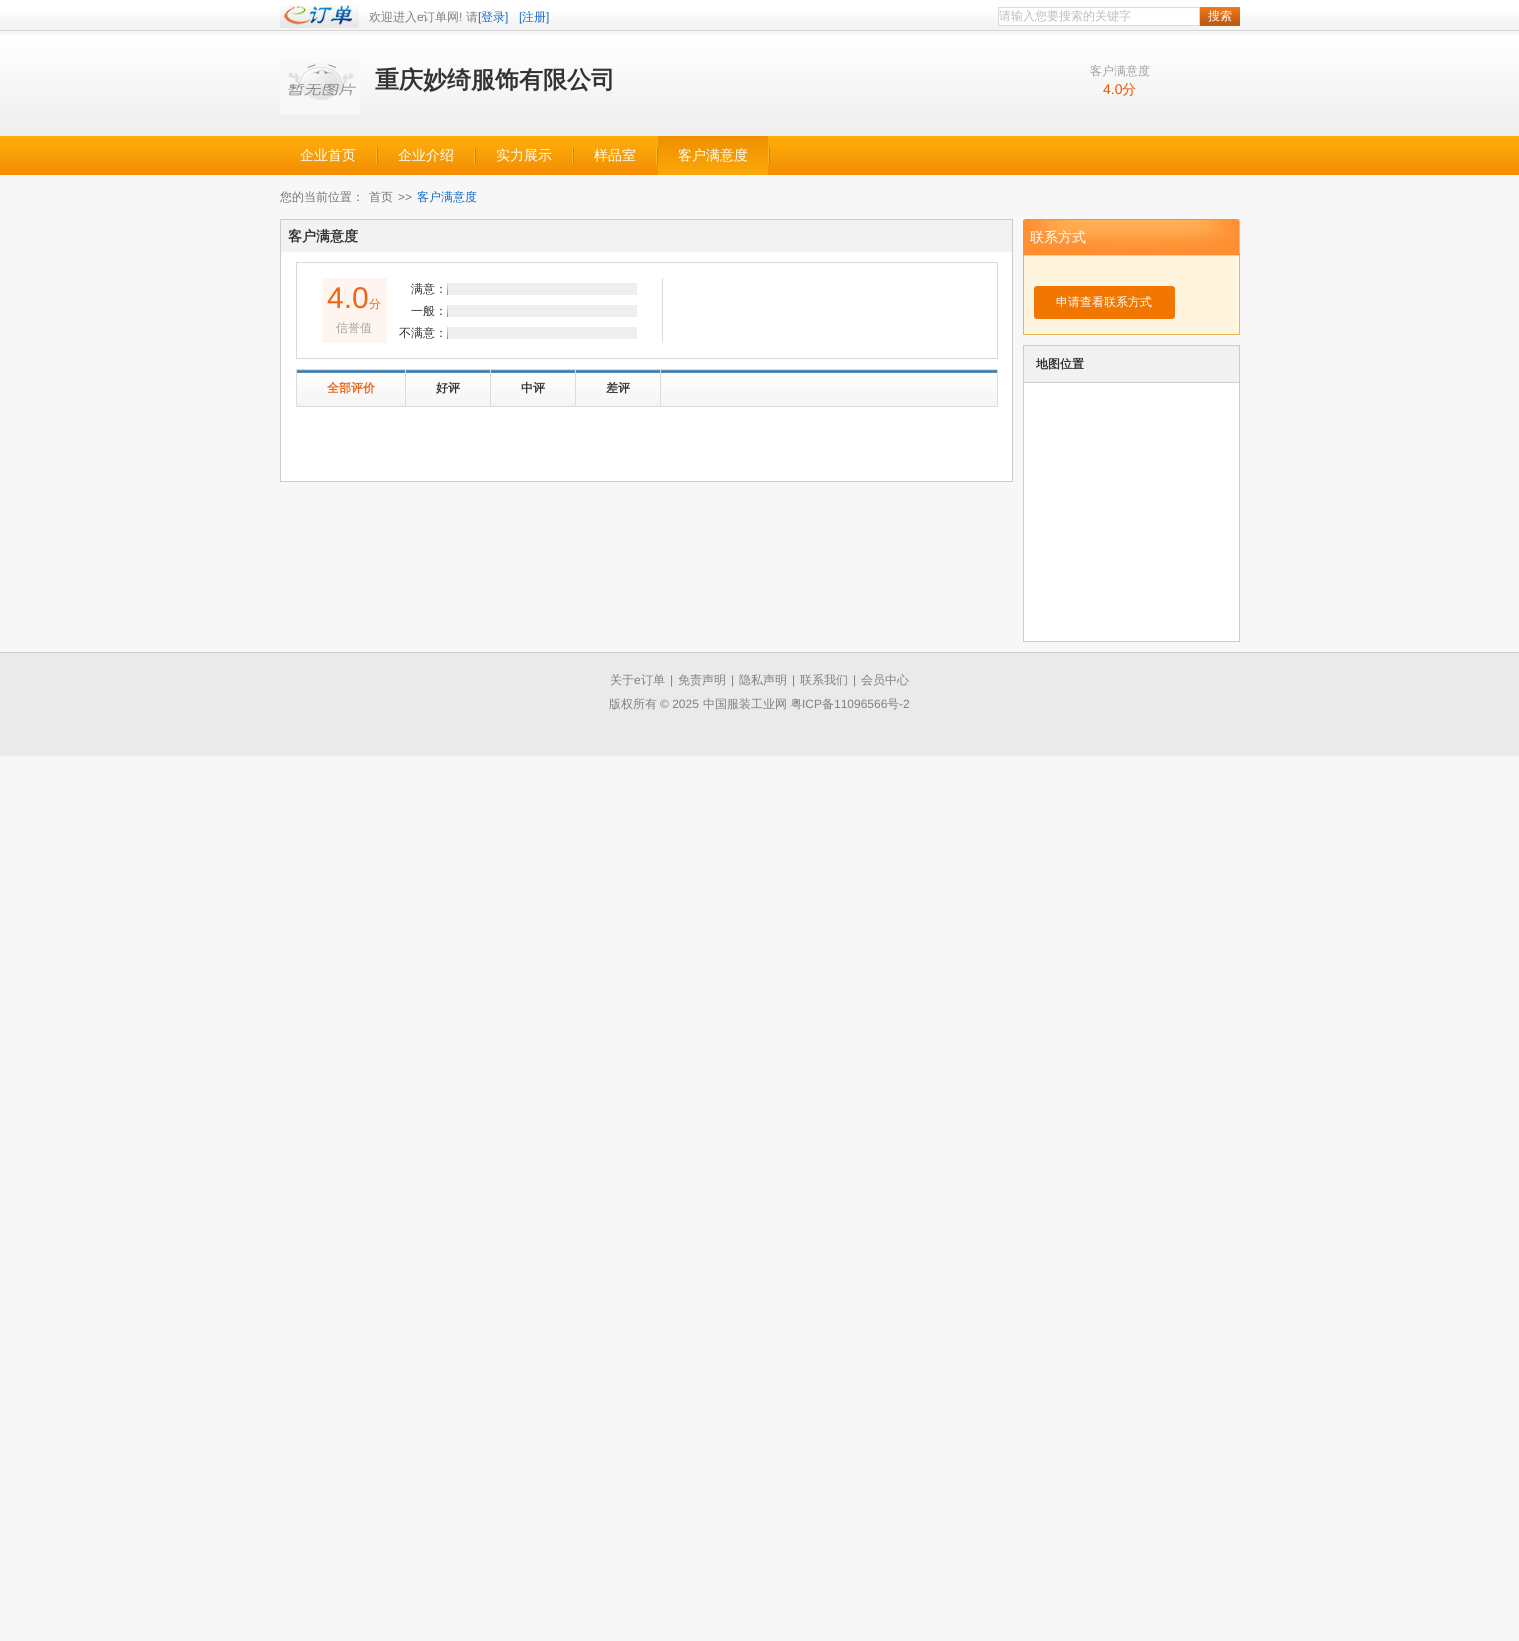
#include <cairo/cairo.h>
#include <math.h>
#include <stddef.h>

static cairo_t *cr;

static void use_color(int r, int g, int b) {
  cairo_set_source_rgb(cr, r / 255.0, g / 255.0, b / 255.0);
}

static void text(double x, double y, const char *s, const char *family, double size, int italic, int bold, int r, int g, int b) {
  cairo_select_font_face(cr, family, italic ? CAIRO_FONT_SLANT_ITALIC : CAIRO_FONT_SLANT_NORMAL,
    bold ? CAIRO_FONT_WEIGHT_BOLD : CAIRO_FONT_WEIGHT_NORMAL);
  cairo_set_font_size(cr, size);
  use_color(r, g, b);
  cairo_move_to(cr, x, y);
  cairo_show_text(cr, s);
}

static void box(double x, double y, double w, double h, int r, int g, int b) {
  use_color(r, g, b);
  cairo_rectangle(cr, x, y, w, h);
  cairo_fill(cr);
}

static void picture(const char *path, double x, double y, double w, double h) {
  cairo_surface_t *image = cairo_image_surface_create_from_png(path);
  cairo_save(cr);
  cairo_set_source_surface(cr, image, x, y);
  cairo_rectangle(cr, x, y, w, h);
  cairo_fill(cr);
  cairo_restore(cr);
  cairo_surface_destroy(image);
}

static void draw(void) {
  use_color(247, 247, 247);
  cairo_paint(cr);
  picture("img_01.png", 0, 0, 1519, 31);
  picture("img_02.png", 280, 5, 79, 23);
  box(999, 14, 200, 11, 255, 255, 255);
  cairo_rectangle(cr, 998.5, 7.5, 201, 18);
  use_color(217, 217, 217);
  cairo_set_line_width(cr, 1);
  cairo_stroke(cr);
  picture("img_03.png", 1200, 7, 40, 19);
  picture("img_04.png", 0, 34, 1519, 102);
  picture("img_05.png", 280, 62, 80, 52);
  picture("img_06.png", 0, 136, 1519, 39);
  picture("img_07.png", 376, 148, 2, 16);
  picture("img_07.png", 474, 148, 2, 16);
  picture("img_07.png", 572, 148, 2, 16);
  picture("img_07.png", 656, 148, 2, 16);
  picture("img_08.png", 658, 136, 110, 39);
  picture("img_07.png", 768, 148, 2, 16);
  box(281, 252, 731, 229, 255, 255, 255);
  cairo_rectangle(cr, 280.5, 219.5, 732, 262);
  use_color(204, 204, 204);
  cairo_stroke(cr);
  box(281, 220, 731, 32, 242, 242, 242);
  cairo_rectangle(cr, 296.5, 262.5, 701, 96);
  use_color(218, 218, 218);
  cairo_stroke(cr);
  box(662, 278, 1, 65, 218, 218, 218);
  box(322, 278, 65, 65, 255, 245, 240);
  box(448, 283, 189, 12, 239, 239, 239);
  picture("img_09.png", 447, 283, 1, 12);
  box(448, 305, 189, 12, 239, 239, 239);
  picture("img_09.png", 447, 305, 1, 12);
  box(448, 327, 189, 12, 239, 239, 239);
  picture("img_09.png", 447, 327, 1, 12);
  picture("img_10.png", 297, 370, 700, 36);
  cairo_rectangle(cr, 296.5, 369.5, 701, 37);
  use_color(220, 220, 220);
  cairo_stroke(cr);
  box(405, 370, 1, 36, 220, 220, 220);
  box(490, 370, 1, 36, 220, 220, 220);
  box(575, 370, 1, 36, 220, 220, 220);
  box(660, 370, 1, 36, 220, 220, 220);
  picture("img_11.png", 1023, 219, 217, 37);
  box(1024, 256, 215, 78, 255, 244, 222);
  box(1239, 256, 1, 79, 234, 183, 84);
  box(1023, 334, 217, 1, 234, 183, 84);
  box(1023, 256, 1, 79, 234, 183, 84);
  picture("img_12.png", 1034, 286, 141, 33);
  cairo_rectangle(cr, 1023.5, 345.5, 216, 296);
  use_color(204, 204, 204);
  cairo_stroke(cr);
  box(1024, 346, 215, 36, 241, 241, 241);
  box(1024, 382, 215, 1, 207, 207, 207);
  box(1024, 383, 215, 258, 255, 255, 255);
  box(0, 653, 1519, 103, 234, 234, 234);
  box(0, 652, 1519, 1, 207, 207, 207);
  text(369, 21, "欢迎进入", "WenQuanYi Zen Hei Medium", 12, 0, 0, 128, 128, 128);
  text(417, 21, "e", "Liberation Sans", 12, 0, 0, 128, 128, 128);
  text(423, 21, "订单网", "WenQuanYi Zen Hei Medium", 12, 0, 0, 128, 128, 128);
  text(459, 21, "!", "Liberation Sans", 12, 0, 0, 128, 128, 128);
  text(466, 21, "请", "WenQuanYi Zen Hei Medium", 12, 0, 0, 128, 128, 128);
  text(478, 21, "[", "Liberation Sans", 12, 0, 0, 19, 108, 197);
  text(481, 21, "登录", "WenQuanYi Zen Hei Medium", 12, 0, 0, 19, 108, 197);
  text(505, 21, "]", "Liberation Sans", 12, 0, 0, 19, 108, 197);
  text(519, 21, "[", "Liberation Sans", 12, 0, 0, 19, 108, 197);
  text(522, 21, "注册", "WenQuanYi Zen Hei Medium", 12, 0, 0, 19, 108, 197);
  text(546, 21, "]", "Liberation Sans", 12, 0, 0, 19, 108, 197);
  text(999, 20, "请输入您要搜索的关键字", "WenQuanYi Zen Hei Medium", 12, 0, 0, 189, 189, 189);
  text(1208, 20, "搜索", "WenQuanYi Zen Hei Medium", 12, 0, 0, 255, 255, 255);
  text(375, 88, "重庆妙绮服饰有限公司", "WenQuanYi Zen Hei", 24, 0, 1, 51, 51, 51);
  text(1090, 75, "客户满意度", "WenQuanYi Zen Hei Medium", 12, 0, 0, 162, 162, 162);
  text(1103, 94, "4.0", "Liberation Sans", 14, 0, 0, 234, 83, 4);
  text(1122, 94, "分", "WenQuanYi Zen Hei Medium", 14, 0, 0, 234, 83, 4);
  text(300, 160, "企业首页", "WenQuanYi Zen Hei Medium", 14, 0, 0, 255, 255, 255);
  text(398, 160, "企业介绍", "WenQuanYi Zen Hei Medium", 14, 0, 0, 255, 255, 255);
  text(496, 160, "实力展示", "WenQuanYi Zen Hei Medium", 14, 0, 0, 255, 255, 255);
  text(594, 160, "样品室", "WenQuanYi Zen Hei Medium", 14, 0, 0, 255, 255, 255);
  text(678, 160, "客户满意度", "WenQuanYi Zen Hei Medium", 14, 0, 0, 255, 255, 255);
  text(280, 201, "您的当前位置：", "WenQuanYi Zen Hei Medium", 12, 0, 0, 116, 116, 116);
  text(369, 201, "首页", "WenQuanYi Zen Hei Medium", 12, 0, 0, 116, 116, 116);
  text(398, 201, ">>", "Liberation Sans", 12, 0, 0, 116, 116, 116);
  text(417, 201, "客户满意度", "WenQuanYi Zen Hei Medium", 12, 0, 0, 19, 108, 197);
  text(288, 241, "客户满意度", "WenQuanYi Zen Hei", 14, 0, 1, 51, 51, 51);
  text(327, 308, "4.0", "Liberation Sans", 30, 0, 0, 237, 102, 21);
  text(369, 308, "分", "WenQuanYi Zen Hei Medium", 12, 0, 0, 237, 102, 21);
  text(336, 332, "信誉值", "WenQuanYi Zen Hei Medium", 12, 0, 0, 162, 162, 162);
  text(411, 293, "满意：", "WenQuanYi Zen Hei Medium", 12, 0, 0, 51, 51, 51);
  text(411, 315, "一般：", "WenQuanYi Zen Hei Medium", 12, 0, 0, 51, 51, 51);
  text(399, 337, "不满意：", "WenQuanYi Zen Hei Medium", 12, 0, 0, 51, 51, 51);
  text(327, 392, "全部评价", "WenQuanYi Zen Hei", 12, 0, 1, 237, 102, 21);
  text(436, 392, "好评", "WenQuanYi Zen Hei", 12, 0, 1, 51, 51, 51);
  text(521, 392, "中评", "WenQuanYi Zen Hei", 12, 0, 1, 51, 51, 51);
  text(606, 392, "差评", "WenQuanYi Zen Hei", 12, 0, 1, 51, 51, 51);
  text(1030, 242, "联系方式", "WenQuanYi Zen Hei Medium", 14, 0, 0, 255, 255, 255);
  text(1056, 306, "申请查看联系方式", "WenQuanYi Zen Hei Medium", 12, 0, 0, 255, 255, 255);
  text(1036, 368, "地图位置", "WenQuanYi Zen Hei", 12, 0, 1, 51, 51, 51);
  text(610, 684, "关于", "WenQuanYi Zen Hei Medium", 12, 0, 0, 128, 128, 128);
  text(634, 684, "e", "Liberation Sans", 12, 0, 0, 128, 128, 128);
  text(641, 684, "订单", "WenQuanYi Zen Hei Medium", 12, 0, 0, 128, 128, 128);
  text(670, 684, "|", "Liberation Sans", 12, 0, 0, 128, 128, 128);
  text(678, 684, "免责声明", "WenQuanYi Zen Hei Medium", 12, 0, 0, 128, 128, 128);
  text(731, 684, "|", "Liberation Sans", 12, 0, 0, 128, 128, 128);
  text(739, 684, "隐私声明", "WenQuanYi Zen Hei Medium", 12, 0, 0, 128, 128, 128);
  text(792, 684, "|", "Liberation Sans", 12, 0, 0, 128, 128, 128);
  text(800, 684, "联系我们", "WenQuanYi Zen Hei Medium", 12, 0, 0, 128, 128, 128);
  text(853, 684, "|", "Liberation Sans", 12, 0, 0, 128, 128, 128);
  text(861, 684, "会员中心", "WenQuanYi Zen Hei Medium", 12, 0, 0, 128, 128, 128);
  text(609, 708, "版权所有", "WenQuanYi Zen Hei Medium", 12, 0, 0, 128, 128, 128);
  text(660, 708, "© 2025", "Liberation Sans", 12, 0, 0, 128, 128, 128);
  text(703, 708, "中国服装工业网 粤", "WenQuanYi Zen Hei Medium", 12, 0, 0, 128, 128, 128);
  text(802, 708, "ICP", "Liberation Sans", 12, 0, 0, 128, 128, 128);
  text(822, 708, "备", "WenQuanYi Zen Hei Medium", 12, 0, 0, 128, 128, 128);
  text(834, 708, "11096566", "Liberation Sans", 12, 0, 0, 128, 128, 128);
  text(887, 708, "号", "WenQuanYi Zen Hei Medium", 12, 0, 0, 128, 128, 128);
  text(899, 708, "-2", "Liberation Sans", 12, 0, 0, 128, 128, 128);
}

int main(void) {
  cairo_surface_t *surface = cairo_image_surface_create(CAIRO_FORMAT_RGB24, 1519, 1641);
  cr = cairo_create(surface);
  cairo_font_options_t *options = cairo_font_options_create();
  cairo_font_options_set_hint_metrics(options, CAIRO_HINT_METRICS_OFF);
  cairo_font_options_set_hint_style(options, CAIRO_HINT_STYLE_NONE);
  cairo_set_font_options(cr, options);
  cairo_set_miter_limit(cr, 4);
  draw();
  cairo_surface_write_to_png(surface, "out.png");
  cairo_font_options_destroy(options);
  cairo_destroy(cr);
  cairo_surface_destroy(surface);
  return 0;
}
